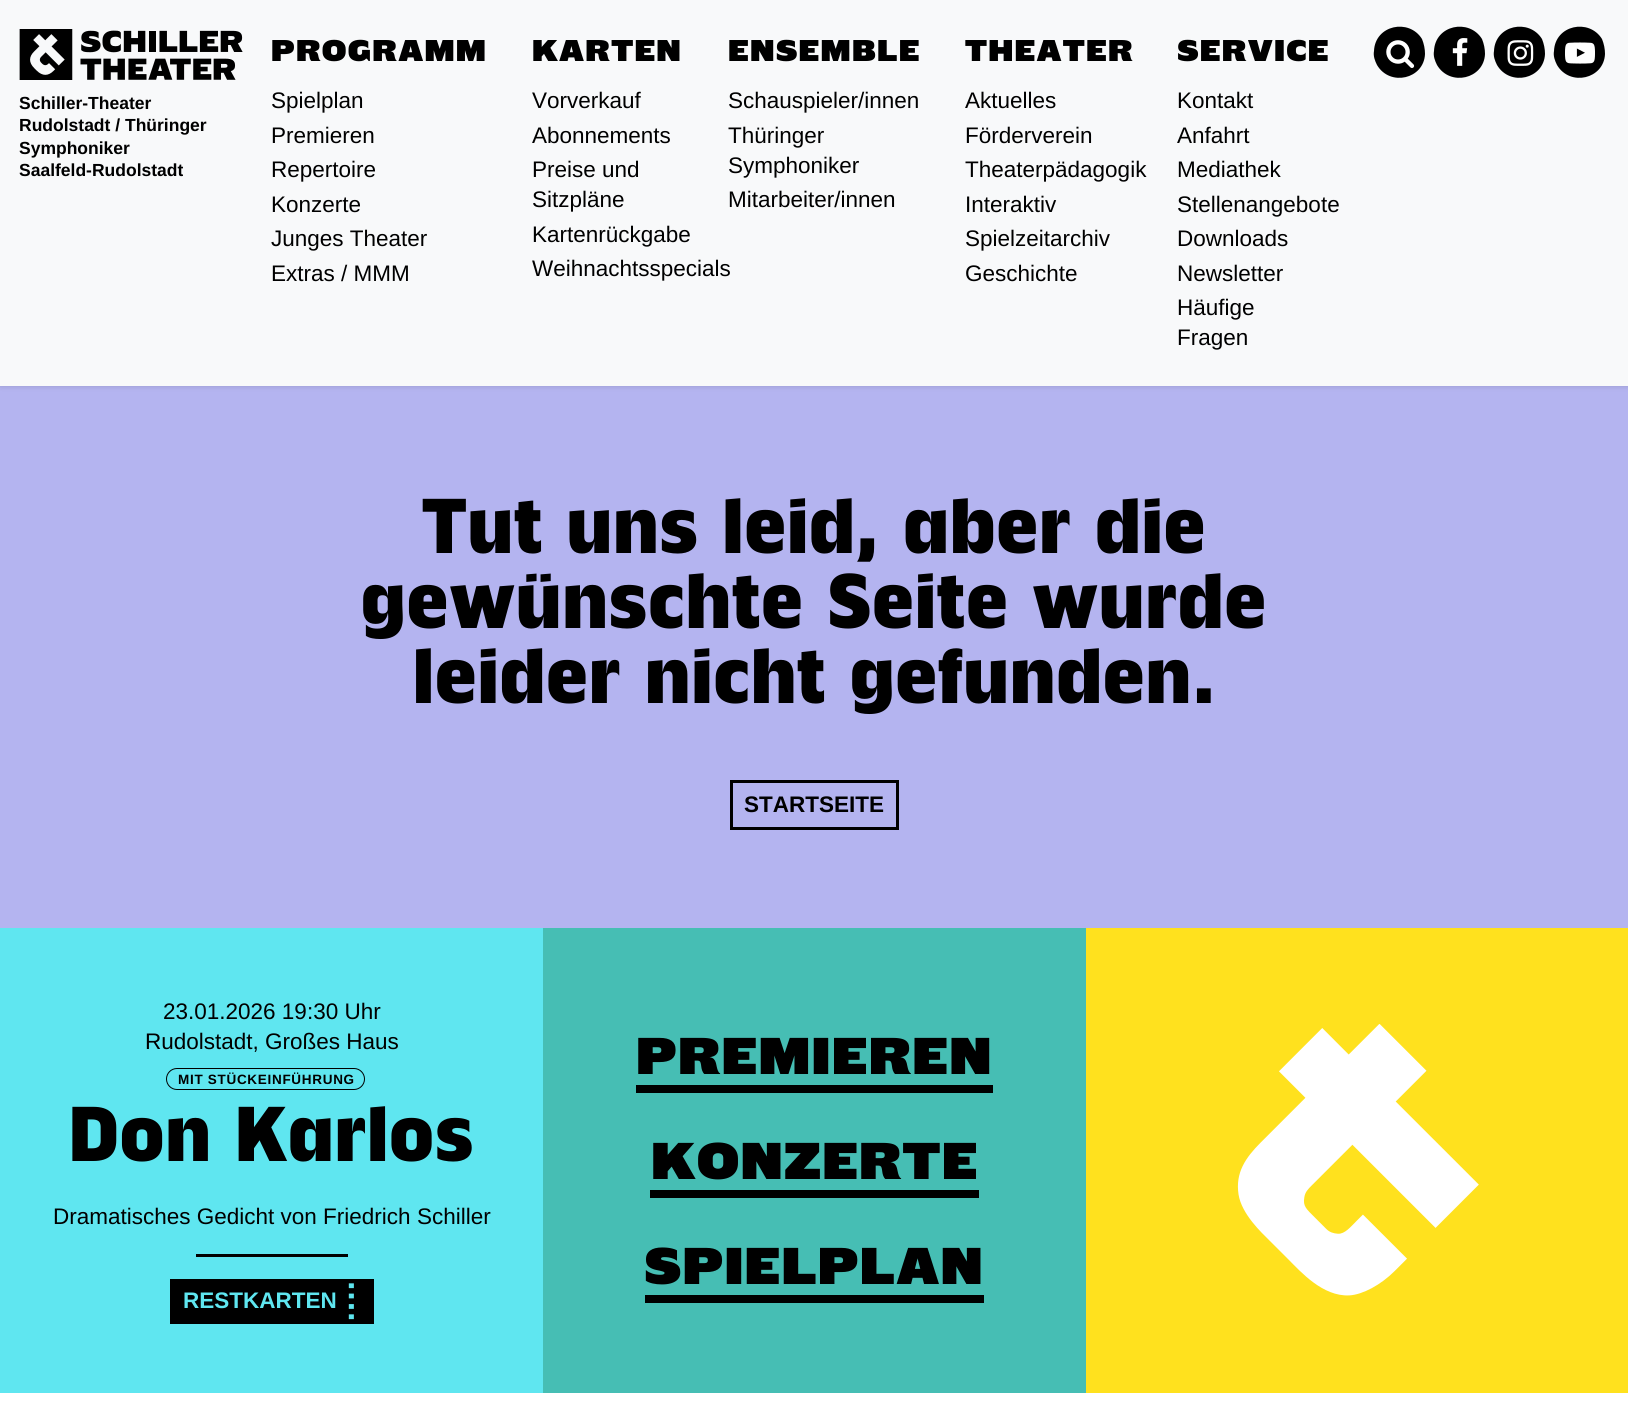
#include <cairo/cairo.h>
#include <math.h>
#include <stddef.h>

static cairo_t *cr;

static void use_color(int r, int g, int b) {
  cairo_set_source_rgb(cr, r / 255.0, g / 255.0, b / 255.0);
}

static void text(double x, double y, const char *s, const char *family, double size, int italic, int bold, int r, int g, int b) {
  cairo_select_font_face(cr, family, italic ? CAIRO_FONT_SLANT_ITALIC : CAIRO_FONT_SLANT_NORMAL,
    bold ? CAIRO_FONT_WEIGHT_BOLD : CAIRO_FONT_WEIGHT_NORMAL);
  cairo_set_font_size(cr, size);
  use_color(r, g, b);
  cairo_move_to(cr, x, y);
  cairo_show_text(cr, s);
}

static void spaced_text(double x, double y, const char *s, double letter, double word) {
  cairo_move_to(cr, x, y);
  while (*s) {
    char ch[5] = {0};
    int n = 0;
    do ch[n++] = *s++; while ((*s & 0xC0) == 0x80);
    cairo_show_text(cr, ch);
    cairo_rel_move_to(cr, letter + word * (*ch == ' '), 0);
  }
}

static void box(double x, double y, double w, double h, int r, int g, int b) {
  use_color(r, g, b);
  cairo_rectangle(cr, x, y, w, h);
  cairo_fill(cr);
}

static void round_rect(double x, double y, double w, double h, double r) {
  cairo_new_sub_path(cr);
  cairo_arc(cr, x + w - r, y + h - r, r, 0, M_PI / 2);
  cairo_arc(cr, x + r, y + h - r, r, M_PI / 2, M_PI);
  cairo_arc(cr, x + r, y + r, r, M_PI, 1.5 * M_PI);
  cairo_arc(cr, x + w - r, y + r, r, 1.5 * M_PI, 2 * M_PI);
  cairo_close_path(cr);
}

static void shadow(double x, double y, double w, double h, double r, double blur, double alpha) {
  cairo_push_group_with_content(cr, CAIRO_CONTENT_ALPHA);
  cairo_set_operator(cr, CAIRO_OPERATOR_SOURCE);
  for (int i = 15; i >= -15 && fmin(w, h) + blur * i / 3 > 0; i -= 2) {
    double e = blur * i / 6;
    cairo_set_source_rgba(cr, 0, 0, 0, alpha * erfc((i - 1) / 8.5) / 2);
    round_rect(x - e, y - e, w + 2 * e, h + 2 * e, fmax(0, fmin(r + e + blur * .6, fmin(w, h) / 2 + e)));
    cairo_fill(cr);
  }
  cairo_pattern_t *soft = cairo_pop_group(cr);
  cairo_mask(cr, soft);
  cairo_pattern_destroy(soft);
}

static void picture(const char *path, double x, double y, double w, double h) {
  cairo_surface_t *image = cairo_image_surface_create_from_png(path);
  cairo_save(cr);
  cairo_set_source_surface(cr, image, x, y);
  cairo_rectangle(cr, x, y, w, h);
  cairo_fill(cr);
  cairo_restore(cr);
  cairo_surface_destroy(image);
}

static void draw(void) {
  use_color(255, 255, 255);
  cairo_paint(cr);
  box(0, 386, 1628, 542, 180, 180, 240);
  use_color(0, 0, 0);
  shadow(0, 0, 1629, 386, 0, 3, 0.15);
  box(0, 0, 1628, 386, 248, 249, 250);
  picture("img_01.png", 19, 29, 224, 51);
  use_color(0, 0, 0);
  cairo_new_path(cr);
  cairo_move_to(cr, 1422, 39);
  cairo_curve_to(cr, 1424, 44, 1425, 49, 1425, 54);
  cairo_curve_to(cr, 1424, 79, 1390, 87, 1377, 65);
  cairo_curve_to(cr, 1375, 61, 1373, 56, 1374, 51);
  cairo_curve_to(cr, 1375, 25, 1409, 18, 1422, 39);
  cairo_close_path(cr);
  cairo_fill(cr);
  picture("img_02.png", 1386, 40, 29, 28);
  cairo_new_path(cr);
  cairo_move_to(cr, 1482, 39);
  cairo_curve_to(cr, 1484, 44, 1485, 49, 1485, 54);
  cairo_curve_to(cr, 1484, 79, 1450, 87, 1437, 65);
  cairo_curve_to(cr, 1435, 61, 1433, 56, 1434, 51);
  cairo_curve_to(cr, 1435, 25, 1469, 18, 1482, 39);
  cairo_close_path(cr);
  cairo_fill(cr);
  picture("img_03.png", 1452, 38, 16, 28);
  cairo_new_path(cr);
  cairo_move_to(cr, 1542, 39);
  cairo_curve_to(cr, 1544, 44, 1545, 49, 1545, 54);
  cairo_curve_to(cr, 1544, 79, 1510, 87, 1497, 65);
  cairo_curve_to(cr, 1495, 61, 1493, 56, 1494, 51);
  cairo_curve_to(cr, 1495, 25, 1529, 18, 1542, 39);
  cairo_close_path(cr);
  cairo_fill(cr);
  picture("img_04.png", 1507, 40, 27, 26);
  cairo_new_path(cr);
  cairo_move_to(cr, 1602, 39);
  cairo_curve_to(cr, 1604, 44, 1605, 49, 1605, 54);
  cairo_curve_to(cr, 1604, 79, 1570, 87, 1557, 65);
  cairo_curve_to(cr, 1555, 61, 1553, 56, 1554, 51);
  cairo_curve_to(cr, 1555, 25, 1589, 18, 1602, 39);
  cairo_close_path(cr);
  cairo_fill(cr);
  picture("img_05.png", 1565, 42, 30, 22);
  cairo_rectangle(cr, 731.5, 781.5, 166, 47);
  cairo_set_line_width(cr, 3);
  cairo_stroke(cr);
  box(0, 928, 543, 465, 95, 230, 240);
  round_rect(166.5, 1068.5, 198, 21, 10.5);
  use_color(0, 0, 0);
  cairo_set_line_width(cr, 1);
  cairo_stroke(cr);
  box(196, 1254, 152, 3, 0, 0, 0);
  box(170, 1279, 204, 45, 0, 0, 0);
  box(543, 928, 543, 465, 70, 190, 180);
  box(636, 1085, 357, 8, 0, 0, 0);
  box(650, 1190, 329, 8, 0, 0, 0);
  box(645, 1295, 339, 8, 0, 0, 0);
  box(1086, 928, 542, 465, 255, 225, 30);
  picture("img_06.png", 1237, 1024, 242, 272);
  text(19, 109, "Schiller-Theater", "Liberation Sans", 17.5, 0, 1, 0, 0, 0);
  text(19, 131, "Rudolstadt / Thüringer", "Liberation Sans", 17.5, 0, 1, 0, 0, 0);
  text(19, 154, "Symphoniker", "Liberation Sans", 17.5, 0, 1, 0, 0, 0);
  text(19, 176, "Saalfeld-Rudolstadt", "Liberation Sans", 17.5, 0, 1, 0, 0, 0);
  cairo_select_font_face(cr, "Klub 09 Black", CAIRO_FONT_SLANT_NORMAL, CAIRO_FONT_WEIGHT_NORMAL);
  cairo_set_font_size(cr, 30.5);
  spaced_text(271, 61, "PROGRAMM", 1.25, 0);
  text(271, 108, "Spielplan", "Liberation Sans", 22.5, 0, 0, 0, 0, 0);
  text(271, 143, "Premieren", "Liberation Sans", 22.5, 0, 0, 0, 0, 0);
  text(271, 177, "Repertoire", "Liberation Sans", 22.5, 0, 0, 0, 0, 0);
  text(271, 212, "Konzerte", "Liberation Sans", 22.5, 0, 0, 0, 0, 0);
  text(271, 246, "Junges Theater", "Liberation Sans", 22.5, 0, 0, 0, 0, 0);
  text(271, 281, "Extras / MMM", "Liberation Sans", 22.5, 0, 0, 0, 0, 0);
  cairo_select_font_face(cr, "Klub 09 Black", CAIRO_FONT_SLANT_NORMAL, CAIRO_FONT_WEIGHT_NORMAL);
  cairo_set_font_size(cr, 30.5);
  spaced_text(532, 61, "KARTEN", 1.25, 0);
  text(532, 108, "Vorverkauf", "Liberation Sans", 22.5, 0, 0, 0, 0, 0);
  text(532, 143, "Abonnements", "Liberation Sans", 22.5, 0, 0, 0, 0, 0);
  text(532, 177, "Preise und", "Liberation Sans", 22.5, 0, 0, 0, 0, 0);
  text(532, 207, "Sitzpläne", "Liberation Sans", 22.5, 0, 0, 0, 0, 0);
  text(532, 242, "Kartenrückgabe", "Liberation Sans", 22.5, 0, 0, 0, 0, 0);
  text(532, 276, "Weihnachtsspecials", "Liberation Sans", 22.5, 0, 0, 0, 0, 0);
  cairo_select_font_face(cr, "Klub 09 Black", CAIRO_FONT_SLANT_NORMAL, CAIRO_FONT_WEIGHT_NORMAL);
  cairo_set_font_size(cr, 30.5);
  spaced_text(728, 61, "ENSEMBLE", 1.25, 0);
  text(728, 108, "Schauspieler/innen", "Liberation Sans", 22.5, 0, 0, 0, 0, 0);
  text(728, 143, "Thüringer", "Liberation Sans", 22.5, 0, 0, 0, 0, 0);
  text(728, 173, "Symphoniker", "Liberation Sans", 22.5, 0, 0, 0, 0, 0);
  text(728, 207, "Mitarbeiter/innen", "Liberation Sans", 22.5, 0, 0, 0, 0, 0);
  cairo_select_font_face(cr, "Klub 09 Black", CAIRO_FONT_SLANT_NORMAL, CAIRO_FONT_WEIGHT_NORMAL);
  cairo_set_font_size(cr, 30.5);
  spaced_text(965, 61, "THEATER", 1.25, 0);
  text(965, 108, "Aktuelles", "Liberation Sans", 22.5, 0, 0, 0, 0, 0);
  text(965, 143, "Förderverein", "Liberation Sans", 22.5, 0, 0, 0, 0, 0);
  text(965, 177, "Theaterpädagogik", "Liberation Sans", 22.5, 0, 0, 0, 0, 0);
  text(965, 212, "Interaktiv", "Liberation Sans", 22.5, 0, 0, 0, 0, 0);
  text(965, 246, "Spielzeitarchiv", "Liberation Sans", 22.5, 0, 0, 0, 0, 0);
  text(965, 281, "Geschichte", "Liberation Sans", 22.5, 0, 0, 0, 0, 0);
  cairo_select_font_face(cr, "Klub 09 Black", CAIRO_FONT_SLANT_NORMAL, CAIRO_FONT_WEIGHT_NORMAL);
  cairo_set_font_size(cr, 30.5);
  spaced_text(1177, 61, "SERVICE", 1.25, 0);
  text(1177, 108, "Kontakt", "Liberation Sans", 22.5, 0, 0, 0, 0, 0);
  text(1177, 143, "Anfahrt", "Liberation Sans", 22.5, 0, 0, 0, 0, 0);
  text(1177, 177, "Mediathek", "Liberation Sans", 22.5, 0, 0, 0, 0, 0);
  text(1177, 212, "Stellenangebote", "Liberation Sans", 22.5, 0, 0, 0, 0, 0);
  text(1177, 246, "Downloads", "Liberation Sans", 22.5, 0, 0, 0, 0, 0);
  text(1177, 281, "Newsletter", "Liberation Sans", 22.5, 0, 0, 0, 0, 0);
  text(1177, 315, "Häufige", "Liberation Sans", 22.5, 0, 0, 0, 0, 0);
  text(1177, 345, "Fragen", "Liberation Sans", 22.5, 0, 0, 0, 0, 0);
  cairo_select_font_face(cr, "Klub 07", CAIRO_FONT_SLANT_NORMAL, CAIRO_FONT_WEIGHT_BOLD);
  cairo_set_font_size(cr, 78.75);
  spaced_text(422, 553, "Tut uns leid, aber die", 1.25, 0);
  spaced_text(361, 628, "gewünschte Seite wurde", 1.25, 0);
  spaced_text(413, 703, "leider nicht gefunden.", 1.25, 0);
  text(744, 812, "STARTSEITE", "Liberation Sans", 22.5, 0, 1, 0, 0, 0);
  text(163, 1019, "23.01.2026 19:30 Uhr", "Liberation Sans", 22.5, 0, 0, 0, 0, 0);
  text(145, 1049, "Rudolstadt, Großes Haus", "Liberation Sans", 22.5, 0, 0, 0, 0, 0);
  cairo_select_font_face(cr, "Liberation Sans", CAIRO_FONT_SLANT_NORMAL, CAIRO_FONT_WEIGHT_BOLD);
  cairo_set_font_size(cr, 13.5);
  spaced_text(178, 1084, "MIT STÜCKEINFÜHRUNG", 0.7, 0);
  cairo_select_font_face(cr, "Klub 07", CAIRO_FONT_SLANT_NORMAL, CAIRO_FONT_WEIGHT_BOLD);
  cairo_set_font_size(cr, 78.75);
  spaced_text(69, 1161, "Don Karlos", 1.25, 0);
  text(53, 1224, "Dramatisches Gedicht von Friedrich Schiller", "Liberation Sans", 22.5, 0, 0, 0, 0, 0);
  text(183, 1308, "RESTKARTEN", "Liberation Sans", 22.5, 0, 1, 95, 230, 240);
  cairo_set_font_size(cr, 34);
  cairo_save(cr);
  cairo_translate(cr, 340, 1281);
  cairo_rotate(cr, 90 * M_PI / 180);
  spaced_text(0, 0, "····", -1, 0);
  cairo_restore(cr);
  cairo_select_font_face(cr, "Klub 09 Black", CAIRO_FONT_SLANT_NORMAL, CAIRO_FONT_WEIGHT_NORMAL);
  cairo_set_font_size(cr, 52.5);
  use_color(0, 0, 0);
  spaced_text(636, 1074, "PREMIEREN", 1.25, 0);
  spaced_text(651, 1179, "KONZERTE", 1.25, 0);
  spaced_text(644, 1284, "SPIELPLAN", 1.25, 0);
}

int main(void) {
  cairo_surface_t *surface = cairo_image_surface_create(CAIRO_FORMAT_RGB24, 1628, 1414);
  cr = cairo_create(surface);
  cairo_font_options_t *options = cairo_font_options_create();
  cairo_font_options_set_hint_metrics(options, CAIRO_HINT_METRICS_OFF);
  cairo_font_options_set_hint_style(options, CAIRO_HINT_STYLE_NONE);
  cairo_set_font_options(cr, options);
  cairo_set_miter_limit(cr, 4);
  draw();
  cairo_surface_write_to_png(surface, "out.png");
  cairo_font_options_destroy(options);
  cairo_destroy(cr);
  cairo_surface_destroy(surface);
  return 0;
}
